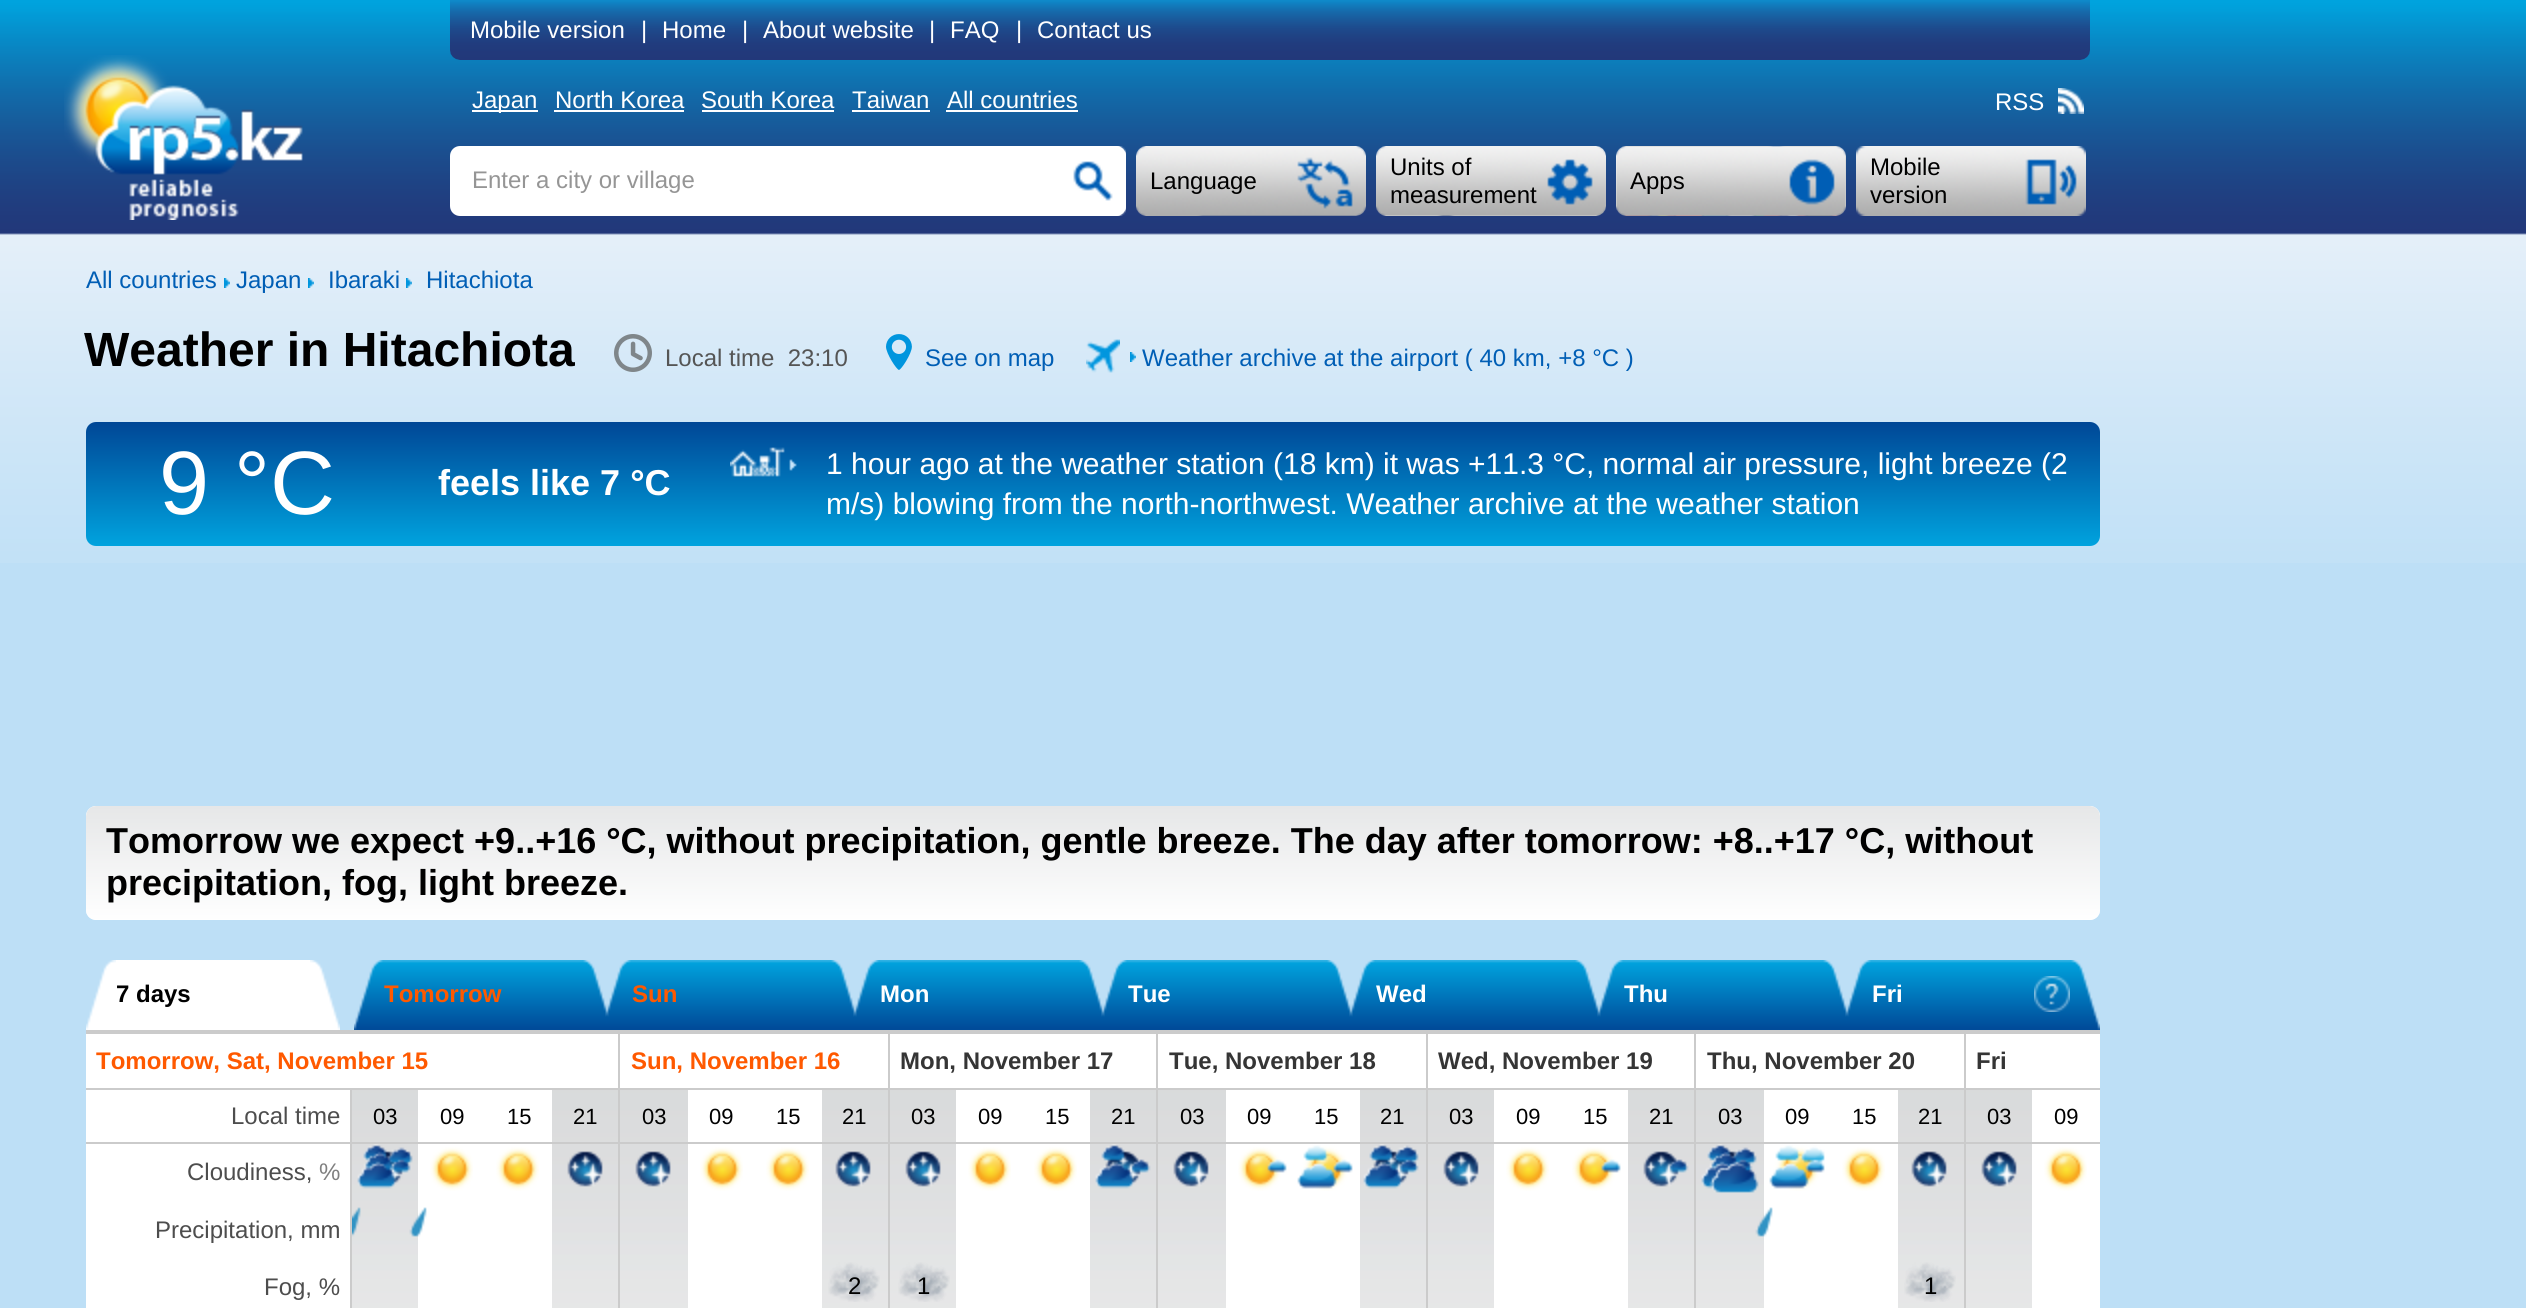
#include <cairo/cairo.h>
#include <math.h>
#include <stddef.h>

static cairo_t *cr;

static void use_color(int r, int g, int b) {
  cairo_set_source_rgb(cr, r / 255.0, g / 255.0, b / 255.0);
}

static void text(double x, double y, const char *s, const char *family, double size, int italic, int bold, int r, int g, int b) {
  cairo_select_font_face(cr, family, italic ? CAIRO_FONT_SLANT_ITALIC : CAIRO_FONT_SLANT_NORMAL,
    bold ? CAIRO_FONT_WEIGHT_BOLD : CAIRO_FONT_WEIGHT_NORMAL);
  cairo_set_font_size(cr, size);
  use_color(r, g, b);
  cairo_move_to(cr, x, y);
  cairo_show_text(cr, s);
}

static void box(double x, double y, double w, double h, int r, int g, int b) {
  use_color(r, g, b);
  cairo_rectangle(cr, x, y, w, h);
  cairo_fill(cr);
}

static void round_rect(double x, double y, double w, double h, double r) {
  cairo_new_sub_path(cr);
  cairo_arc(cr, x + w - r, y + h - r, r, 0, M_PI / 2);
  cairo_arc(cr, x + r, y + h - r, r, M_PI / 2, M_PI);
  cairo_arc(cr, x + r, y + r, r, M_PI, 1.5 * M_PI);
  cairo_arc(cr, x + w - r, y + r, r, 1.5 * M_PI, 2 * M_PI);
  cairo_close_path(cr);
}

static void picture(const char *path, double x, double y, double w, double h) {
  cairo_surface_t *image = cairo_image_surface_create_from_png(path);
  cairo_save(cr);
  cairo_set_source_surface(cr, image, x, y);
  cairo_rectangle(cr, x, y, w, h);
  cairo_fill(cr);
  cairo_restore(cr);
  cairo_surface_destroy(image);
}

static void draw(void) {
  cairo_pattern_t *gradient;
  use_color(189, 223, 246);
  cairo_paint(cr);
  picture("img_01.png", 0, 246, 2526, 317);
  picture("img_02.png", 0, 0, 2526, 246);
  picture("img_03.png", 450, 0, 1640, 60);
  picture("img_04.png", 64, 55, 239, 165);
  box(472, 110, 66, 2, 255, 255, 255);
  box(554, 110, 130, 2, 255, 255, 255);
  box(702, 110, 132, 2, 255, 255, 255);
  box(852, 110, 78, 2, 255, 255, 255);
  box(946, 110, 132, 2, 255, 255, 255);
  picture("img_05.png", 2058, 88, 26, 26);
  round_rect(450, 146, 676, 70, 10);
  cairo_fill(cr);
  picture("img_06.png", 1073, 146, 53, 70);
  picture("img_07.png", 1136, 146, 230, 70);
  picture("img_08.png", 1376, 146, 230, 70);
  picture("img_09.png", 1616, 146, 230, 70);
  picture("img_10.png", 1856, 146, 230, 70);
  picture("img_11.png", 224, 278, 6, 10);
  picture("img_11.png", 308, 278, 6, 10);
  picture("img_11.png", 406, 278, 6, 10);
  picture("img_12.png", 614, 334, 38, 38);
  picture("img_13.png", 886, 334, 26, 36);
  picture("img_14.png", 1086, 339, 34, 34);
  picture("img_15.png", 1130, 352, 6, 10);
  gradient = cairo_pattern_create_linear(1093, 422, 1093, 546);
  cairo_pattern_add_color_stop_rgba(gradient, 0, 0, 0.278, 0.588, 1);
  cairo_pattern_add_color_stop_rgba(gradient, 1, 0, 0.639, 0.871, 1);
  cairo_set_source(cr, gradient);
  cairo_pattern_destroy(gradient);
  round_rect(86, 422, 2014, 124, 10);
  cairo_fill(cr);
  picture("img_16.png", 730, 447, 67, 30);
  use_color(255, 255, 255);
  round_rect(86, 806, 2014, 114, 10);
  cairo_fill(cr);
  picture("img_17.png", 86, 806, 2014, 114);
  picture("img_18.png", 86, 960, 30, 70);
  box(116, 960, 194, 70, 255, 255, 255);
  picture("img_19.png", 310, 960, 30, 70);
  picture("img_20.png", 354, 960, 30, 70);
  picture("img_21.png", 384, 960, 198, 70);
  picture("img_22.png", 582, 960, 27, 70);
  picture("img_23.png", 606, 960, 26, 70);
  picture("img_21.png", 632, 960, 198, 70);
  picture("img_22.png", 830, 960, 27, 70);
  picture("img_23.png", 854, 960, 26, 70);
  picture("img_21.png", 880, 960, 198, 70);
  picture("img_22.png", 1078, 960, 27, 70);
  picture("img_23.png", 1102, 960, 26, 70);
  picture("img_21.png", 1128, 960, 198, 70);
  picture("img_22.png", 1326, 960, 27, 70);
  picture("img_23.png", 1350, 960, 26, 70);
  picture("img_21.png", 1376, 960, 198, 70);
  picture("img_22.png", 1574, 960, 27, 70);
  picture("img_23.png", 1598, 960, 26, 70);
  picture("img_21.png", 1624, 960, 198, 70);
  picture("img_22.png", 1822, 960, 27, 70);
  picture("img_23.png", 1846, 960, 26, 70);
  picture("img_21.png", 1872, 960, 198, 70);
  picture("img_24.png", 2034, 976, 36, 36);
  picture("img_25.png", 2070, 960, 30, 70);
  picture("img_26.png", 352, 1090, 1680, 218);
  box(86, 1034, 2014, 54, 255, 255, 255);
  box(86, 1030, 2014, 4, 203, 203, 203);
  box(86, 1088, 2014, 2, 203, 203, 203);
  box(618, 1030, 2, 60, 203, 203, 203);
  box(888, 1030, 2, 60, 203, 203, 203);
  box(1156, 1030, 2, 60, 203, 203, 203);
  box(1426, 1030, 2, 60, 203, 203, 203);
  box(1694, 1030, 2, 60, 203, 203, 203);
  box(1964, 1030, 2, 60, 203, 203, 203);
  box(86, 1090, 264, 52, 255, 255, 255);
  box(86, 1142, 2014, 2, 203, 203, 203);
  box(350, 1090, 2, 218, 203, 203, 203);
  box(418, 1090, 134, 52, 255, 255, 255);
  box(618, 1090, 2, 218, 203, 203, 203);
  box(688, 1090, 134, 52, 255, 255, 255);
  box(888, 1090, 2, 218, 203, 203, 203);
  box(956, 1090, 134, 52, 255, 255, 255);
  box(1156, 1090, 2, 218, 203, 203, 203);
  box(1226, 1090, 134, 52, 255, 255, 255);
  box(1426, 1090, 2, 218, 203, 203, 203);
  box(1494, 1090, 134, 52, 255, 255, 255);
  box(1694, 1090, 2, 218, 203, 203, 203);
  box(1764, 1090, 134, 52, 255, 255, 255);
  box(1964, 1090, 2, 218, 203, 203, 203);
  box(2032, 1090, 68, 52, 255, 255, 255);
  picture("img_27.png", 357, 1144, 56, 45);
  box(418, 1144, 134, 56, 255, 255, 255);
  picture("img_28.png", 430, 1147, 43, 44);
  box(688, 1144, 134, 56, 255, 255, 255);
  picture("img_28.png", 700, 1147, 43, 44);
  box(956, 1144, 134, 56, 255, 255, 255);
  picture("img_28.png", 968, 1147, 43, 44);
  picture("img_29.png", 1095, 1144, 56, 45);
  box(1226, 1144, 134, 56, 255, 255, 255);
  picture("img_30.png", 1238, 1147, 49, 44);
  picture("img_31.png", 1363, 1144, 56, 45);
  box(1494, 1144, 134, 56, 255, 255, 255);
  picture("img_28.png", 1506, 1147, 43, 44);
  picture("img_32.png", 1701, 1144, 58, 49);
  box(1764, 1144, 134, 56, 255, 255, 255);
  picture("img_33.png", 1769, 1145, 56, 46);
  box(2032, 1144, 68, 164, 255, 255, 255);
  picture("img_28.png", 2044, 1147, 43, 44);
  box(86, 1144, 264, 164, 255, 255, 255);
  picture("img_28.png", 496, 1147, 43, 44);
  picture("img_34.png", 567, 1151, 36, 36);
  picture("img_34.png", 635, 1151, 36, 36);
  picture("img_28.png", 766, 1147, 43, 44);
  picture("img_34.png", 835, 1151, 36, 36);
  picture("img_34.png", 905, 1151, 36, 36);
  picture("img_28.png", 1034, 1147, 43, 44);
  picture("img_34.png", 1173, 1151, 36, 36);
  picture("img_35.png", 1297, 1145, 56, 46);
  picture("img_34.png", 1443, 1151, 36, 36);
  picture("img_30.png", 1572, 1147, 49, 44);
  picture("img_36.png", 1643, 1151, 46, 36);
  picture("img_28.png", 1842, 1147, 43, 44);
  picture("img_34.png", 1911, 1151, 36, 36);
  picture("img_34.png", 1981, 1151, 36, 36);
  picture("img_37.png", 352, 1207, 9, 30);
  box(418, 1200, 134, 60, 255, 255, 255);
  picture("img_38.png", 409, 1207, 18, 30);
  box(688, 1200, 134, 60, 255, 255, 255);
  box(956, 1200, 134, 60, 255, 255, 255);
  box(1226, 1200, 134, 60, 255, 255, 255);
  box(1494, 1200, 134, 60, 255, 255, 255);
  box(1764, 1200, 134, 60, 255, 255, 255);
  picture("img_38.png", 1755, 1207, 18, 30);
  box(418, 1260, 134, 48, 255, 255, 255);
  box(688, 1260, 134, 48, 255, 255, 255);
  picture("img_39.png", 828, 1262, 52, 40);
  picture("img_39.png", 898, 1262, 52, 40);
  box(956, 1260, 134, 48, 255, 255, 255);
  box(1226, 1260, 134, 48, 255, 255, 255);
  box(1494, 1260, 134, 48, 255, 255, 255);
  box(1764, 1260, 134, 48, 255, 255, 255);
  picture("img_39.png", 1904, 1262, 52, 40);
  text(470, 38, "Mobile version", "Liberation Sans", 24, 0, 0, 255, 255, 255);
  text(641, 38, "|", "Liberation Sans", 24, 0, 0, 255, 255, 255);
  text(662, 38, "Home", "Liberation Sans", 24, 0, 0, 255, 255, 255);
  text(742, 38, "|", "Liberation Sans", 24, 0, 0, 255, 255, 255);
  text(763, 38, "About website", "Liberation Sans", 24, 0, 0, 255, 255, 255);
  text(929, 38, "|", "Liberation Sans", 24, 0, 0, 255, 255, 255);
  text(950, 38, "FAQ", "Liberation Sans", 24, 0, 0, 255, 255, 255);
  text(1016, 38, "|", "Liberation Sans", 24, 0, 0, 255, 255, 255);
  text(1037, 38, "Contact us", "Liberation Sans", 24, 0, 0, 255, 255, 255);
  text(472, 108, "Japan", "Liberation Sans", 24, 0, 0, 255, 255, 255);
  text(555, 108, "North Korea", "Liberation Sans", 24, 0, 0, 255, 255, 255);
  text(701, 108, "South Korea", "Liberation Sans", 24, 0, 0, 255, 255, 255);
  text(852, 108, "Taiwan", "Liberation Sans", 24, 0, 0, 255, 255, 255);
  text(947, 108, "All countries", "Liberation Sans", 24, 0, 0, 255, 255, 255);
  text(1995, 110, "RSS", "Liberation Sans", 24, 0, 0, 255, 255, 255);
  text(472, 188, "Enter a city or village", "Liberation Sans", 24, 0, 0, 149, 149, 149);
  text(1150, 189, "Language", "Liberation Sans", 24, 0, 0, 0, 0, 0);
  text(1390, 175, "Units of", "Liberation Sans", 24, 0, 0, 0, 0, 0);
  text(1390, 203, "measurement", "Liberation Sans", 24, 0, 0, 0, 0, 0);
  text(1630, 189, "Apps", "Liberation Sans", 24, 0, 0, 0, 0, 0);
  text(1870, 175, "Mobile", "Liberation Sans", 24, 0, 0, 0, 0, 0);
  text(1870, 203, "version", "Liberation Sans", 24, 0, 0, 0, 0, 0);
  text(86, 288, "All countries", "Liberation Sans", 24, 0, 0, 0, 94, 181);
  text(236, 288, "Japan", "Liberation Sans", 24, 0, 0, 0, 94, 181);
  text(328, 288, "Ibaraki", "Liberation Sans", 24, 0, 0, 0, 94, 181);
  text(426, 288, "Hitachiota", "Liberation Sans", 24, 0, 0, 0, 94, 181);
  text(84, 366, "Weather in Hitachiota", "Liberation Sans", 48, 0, 1, 0, 0, 0);
  text(665, 366, "Local time  23:10", "Liberation Sans", 24, 0, 0, 85, 85, 85);
  text(925, 366, "See on map", "Liberation Sans", 24, 0, 0, 0, 94, 181);
  text(1142, 366, "Weather archive at the airport ( 40 km, +8 °C )", "Liberation Sans", 24, 0, 0, 0, 94, 181);
  text(159, 514, "9 °C", "Liberation Sans", 90, 0, 0, 255, 255, 255);
  text(438, 495, "feels like 7 °C", "Liberation Sans", 36, 0, 1, 255, 255, 255);
  text(826, 474, "1 hour ago at the weather station (18 km) it was +11.3 °C, normal air pressure, light breeze (2", "Liberation Sans", 30, 0, 0, 255, 255, 255);
  text(826, 514, "m/s) blowing from the north-northwest. Weather archive at the weather station", "Liberation Sans", 30, 0, 0, 255, 255, 255);
  text(106, 853, "Tomorrow we expect +9..+16 °C, without precipitation, gentle breeze. The day after tomorrow: +8..+17 °C, without", "Liberation Sans", 36, 0, 1, 0, 0, 0);
  text(106, 895, "precipitation, fog, light breeze.", "Liberation Sans", 36, 0, 1, 0, 0, 0);
  text(116, 1002, "7 days", "Liberation Sans", 24, 0, 1, 0, 0, 0);
  text(384, 1002, "Tomorrow", "Liberation Sans", 24, 0, 1, 255, 89, 0);
  text(632, 1002, "Sun", "Liberation Sans", 24, 0, 1, 255, 89, 0);
  text(880, 1002, "Mon", "Liberation Sans", 24, 0, 1, 255, 255, 255);
  text(1128, 1002, "Tue", "Liberation Sans", 24, 0, 1, 255, 255, 255);
  text(1376, 1002, "Wed", "Liberation Sans", 24, 0, 1, 255, 255, 255);
  text(1624, 1002, "Thu", "Liberation Sans", 24, 0, 1, 255, 255, 255);
  text(1872, 1002, "Fri", "Liberation Sans", 24, 0, 1, 255, 255, 255);
  text(96, 1069, "Tomorrow, Sat, November 15", "Liberation Sans", 24, 0, 1, 255, 89, 0);
  text(631, 1069, "Sun, November 16", "Liberation Sans", 24, 0, 1, 255, 89, 0);
  text(900, 1069, "Mon, November 17", "Liberation Sans", 24, 0, 1, 53, 53, 53);
  text(1169, 1069, "Tue, November 18", "Liberation Sans", 24, 0, 1, 53, 53, 53);
  text(1438, 1069, "Wed, November 19", "Liberation Sans", 24, 0, 1, 53, 53, 53);
  text(1707, 1069, "Thu, November 20", "Liberation Sans", 24, 0, 1, 53, 53, 53);
  text(1976, 1069, "Fri", "Liberation Sans", 24, 0, 1, 53, 53, 53);
  text(231, 1124, "Local time", "Liberation Sans", 24, 0, 0, 77, 77, 77);
  text(373, 1124, "03", "Liberation Sans", 22, 0, 0, 0, 0, 0);
  text(440, 1124, "09", "Liberation Sans", 22, 0, 0, 0, 0, 0);
  text(507, 1124, "15", "Liberation Sans", 22, 0, 0, 0, 0, 0);
  text(573, 1124, "21", "Liberation Sans", 22, 0, 0, 0, 0, 0);
  text(642, 1124, "03", "Liberation Sans", 22, 0, 0, 0, 0, 0);
  text(709, 1124, "09", "Liberation Sans", 22, 0, 0, 0, 0, 0);
  text(776, 1124, "15", "Liberation Sans", 22, 0, 0, 0, 0, 0);
  text(842, 1124, "21", "Liberation Sans", 22, 0, 0, 0, 0, 0);
  text(911, 1124, "03", "Liberation Sans", 22, 0, 0, 0, 0, 0);
  text(978, 1124, "09", "Liberation Sans", 22, 0, 0, 0, 0, 0);
  text(1045, 1124, "15", "Liberation Sans", 22, 0, 0, 0, 0, 0);
  text(1111, 1124, "21", "Liberation Sans", 22, 0, 0, 0, 0, 0);
  text(1180, 1124, "03", "Liberation Sans", 22, 0, 0, 0, 0, 0);
  text(1247, 1124, "09", "Liberation Sans", 22, 0, 0, 0, 0, 0);
  text(1314, 1124, "15", "Liberation Sans", 22, 0, 0, 0, 0, 0);
  text(1380, 1124, "21", "Liberation Sans", 22, 0, 0, 0, 0, 0);
  text(1449, 1124, "03", "Liberation Sans", 22, 0, 0, 0, 0, 0);
  text(1516, 1124, "09", "Liberation Sans", 22, 0, 0, 0, 0, 0);
  text(1583, 1124, "15", "Liberation Sans", 22, 0, 0, 0, 0, 0);
  text(1649, 1124, "21", "Liberation Sans", 22, 0, 0, 0, 0, 0);
  text(1718, 1124, "03", "Liberation Sans", 22, 0, 0, 0, 0, 0);
  text(1785, 1124, "09", "Liberation Sans", 22, 0, 0, 0, 0, 0);
  text(1852, 1124, "15", "Liberation Sans", 22, 0, 0, 0, 0, 0);
  text(1918, 1124, "21", "Liberation Sans", 22, 0, 0, 0, 0, 0);
  text(1987, 1124, "03", "Liberation Sans", 22, 0, 0, 0, 0, 0);
  text(2054, 1124, "09", "Liberation Sans", 22, 0, 0, 0, 0, 0);
  text(187, 1180, "Cloudiness,", "Liberation Sans", 24, 0, 0, 77, 77, 77);
  text(319, 1180, "%", "Liberation Sans", 24, 0, 0, 128, 128, 128);
  text(155, 1238, "Precipitation, mm", "Liberation Sans", 24, 0, 0, 77, 77, 77);
  text(264, 1295, "Fog, %", "Liberation Sans", 24, 0, 0, 77, 77, 77);
  text(848, 1294, "2", "Liberation Sans", 24, 0, 0, 0, 0, 0);
  text(917, 1294, "1", "Liberation Sans", 24, 0, 0, 0, 0, 0);
  text(1924, 1294, "1", "Liberation Sans", 24, 0, 0, 0, 0, 0);
}

int main(void) {
  cairo_surface_t *surface = cairo_image_surface_create(CAIRO_FORMAT_RGB24, 2526, 1308);
  cr = cairo_create(surface);
  cairo_font_options_t *options = cairo_font_options_create();
  cairo_font_options_set_hint_metrics(options, CAIRO_HINT_METRICS_OFF);
  cairo_font_options_set_hint_style(options, CAIRO_HINT_STYLE_NONE);
  cairo_set_font_options(cr, options);
  cairo_set_miter_limit(cr, 4);
  draw();
  cairo_surface_write_to_png(surface, "out.png");
  cairo_font_options_destroy(options);
  cairo_destroy(cr);
  cairo_surface_destroy(surface);
  return 0;
}
